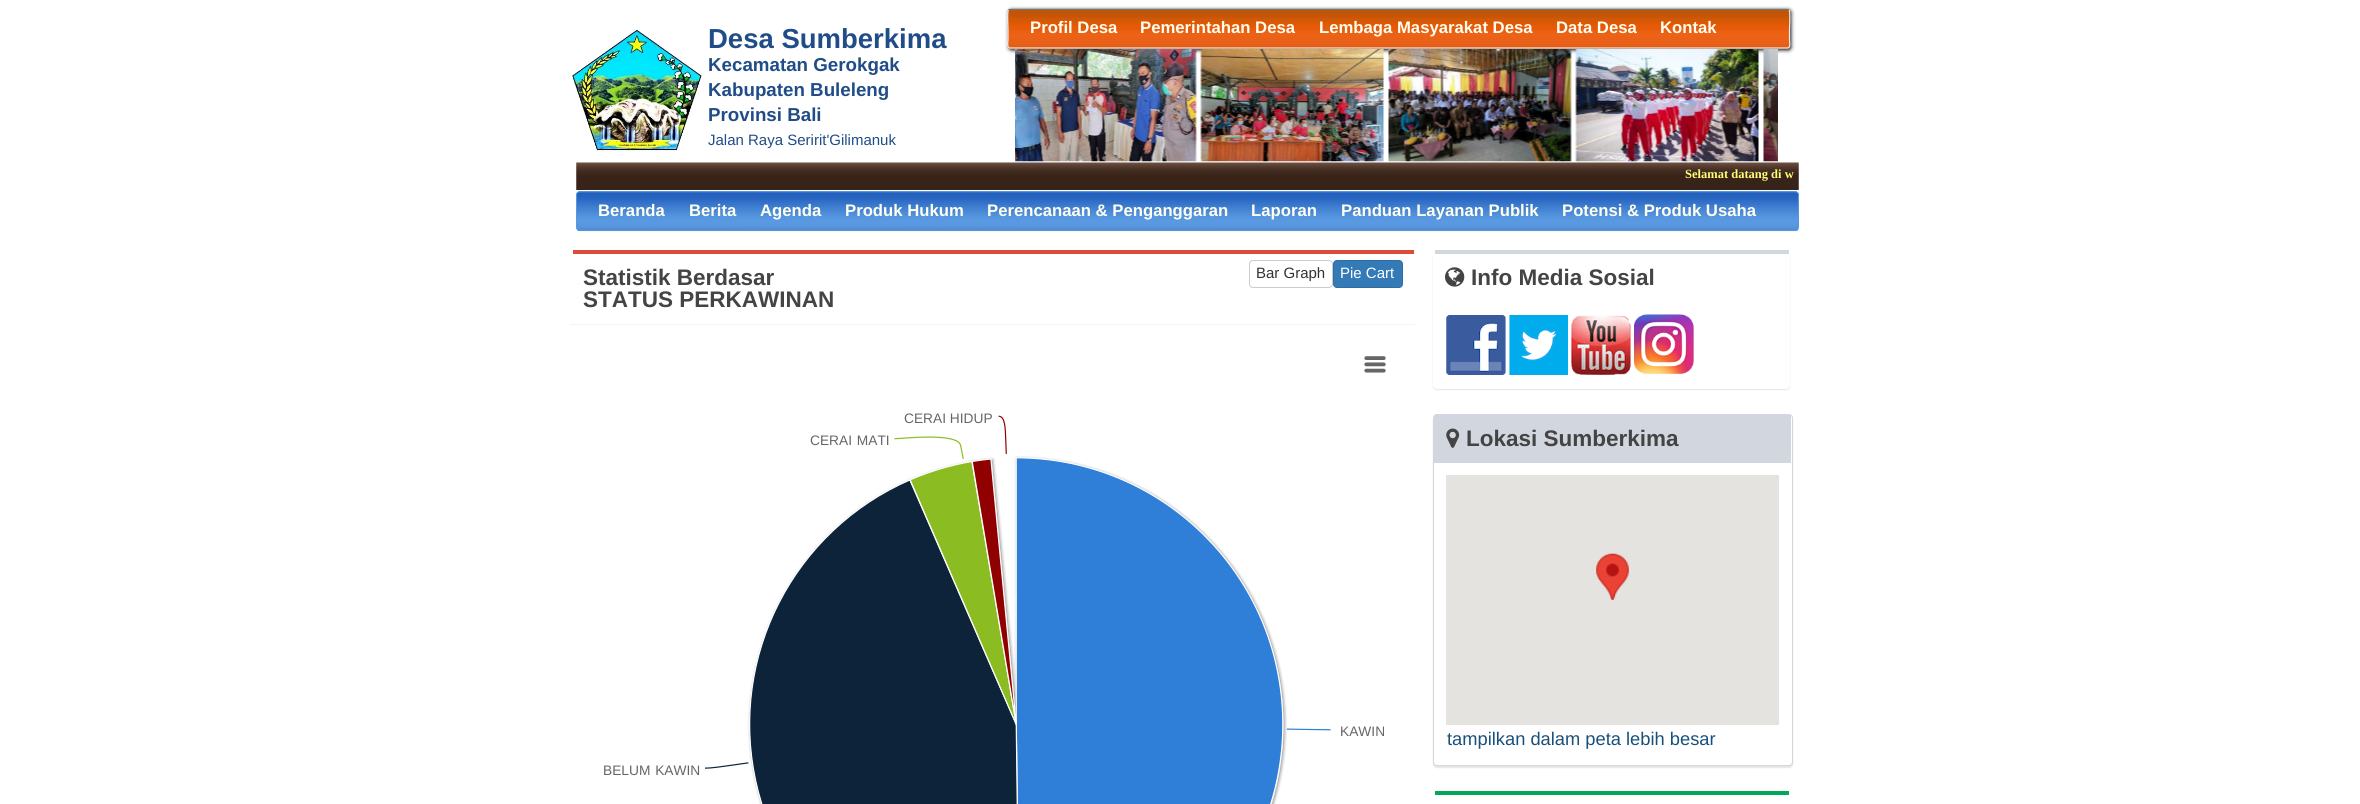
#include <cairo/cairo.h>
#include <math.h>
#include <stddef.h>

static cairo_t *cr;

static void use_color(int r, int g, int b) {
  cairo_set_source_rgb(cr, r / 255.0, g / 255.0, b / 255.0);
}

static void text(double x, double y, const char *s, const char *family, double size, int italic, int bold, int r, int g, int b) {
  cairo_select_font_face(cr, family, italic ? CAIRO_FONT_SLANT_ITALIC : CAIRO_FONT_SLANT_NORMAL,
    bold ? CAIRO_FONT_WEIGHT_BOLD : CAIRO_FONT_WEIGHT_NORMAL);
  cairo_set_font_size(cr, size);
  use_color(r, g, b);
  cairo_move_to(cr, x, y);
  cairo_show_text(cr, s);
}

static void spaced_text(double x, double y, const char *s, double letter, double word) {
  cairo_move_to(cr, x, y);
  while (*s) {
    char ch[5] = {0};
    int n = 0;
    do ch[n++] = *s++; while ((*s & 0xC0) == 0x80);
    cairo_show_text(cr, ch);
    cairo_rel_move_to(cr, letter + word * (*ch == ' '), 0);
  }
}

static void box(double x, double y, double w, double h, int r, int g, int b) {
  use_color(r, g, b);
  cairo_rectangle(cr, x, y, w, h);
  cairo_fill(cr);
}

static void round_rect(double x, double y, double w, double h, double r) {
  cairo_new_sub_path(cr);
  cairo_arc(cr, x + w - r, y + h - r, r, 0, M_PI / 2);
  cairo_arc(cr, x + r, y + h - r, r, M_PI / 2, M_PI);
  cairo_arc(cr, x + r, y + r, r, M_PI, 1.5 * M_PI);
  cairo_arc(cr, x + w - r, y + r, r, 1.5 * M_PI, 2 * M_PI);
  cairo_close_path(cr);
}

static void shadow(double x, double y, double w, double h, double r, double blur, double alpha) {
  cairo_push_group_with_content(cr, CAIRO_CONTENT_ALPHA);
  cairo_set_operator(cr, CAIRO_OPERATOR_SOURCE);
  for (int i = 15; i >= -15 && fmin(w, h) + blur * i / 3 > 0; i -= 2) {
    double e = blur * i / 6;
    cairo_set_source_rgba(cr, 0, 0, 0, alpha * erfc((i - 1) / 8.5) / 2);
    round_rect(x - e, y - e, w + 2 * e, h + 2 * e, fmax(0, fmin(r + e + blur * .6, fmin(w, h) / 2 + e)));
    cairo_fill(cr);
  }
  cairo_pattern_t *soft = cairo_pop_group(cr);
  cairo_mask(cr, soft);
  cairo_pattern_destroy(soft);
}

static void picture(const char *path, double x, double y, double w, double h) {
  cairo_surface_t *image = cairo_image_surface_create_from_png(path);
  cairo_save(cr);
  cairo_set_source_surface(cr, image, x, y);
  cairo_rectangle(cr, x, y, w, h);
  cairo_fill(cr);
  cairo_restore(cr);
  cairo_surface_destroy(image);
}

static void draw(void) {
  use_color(255, 255, 255);
  cairo_paint(cr);
  picture("img_01.png", 572, 29, 130, 122);
  use_color(0, 0, 0);
  shadow(1009, 10, 782, 40, 2.5, 2, 1);
  picture("img_02.png", 1007, 8, 783, 41);
  cairo_new_path(cr);
  cairo_move_to(cr, 1008.5, 10);
  cairo_line_to(cr, 1010, 9.5);
  cairo_line_to(cr, 1787.5, 9.5);
  cairo_line_to(cr, 1789, 10);
  use_color(119, 119, 119);
  cairo_set_line_width(cr, 1.2);
  cairo_stroke(cr);
  cairo_new_path(cr);
  cairo_move_to(cr, 1789, 10);
  cairo_curve_to(cr, 1790.5, 11.5, 1789.5, 26, 1789.5, 29);
  cairo_line_to(cr, 1789.5, 40.5);
  cairo_curve_to(cr, 1789.5, 41, 1791, 48, 1787.5, 48);
  cairo_line_to(cr, 1010, 48);
  cairo_curve_to(cr, 1006.5, 48, 1008, 41, 1008, 40.5);
  cairo_line_to(cr, 1008, 29);
  cairo_curve_to(cr, 1008, 26, 1007, 11.5, 1008.5, 10);
  use_color(238, 238, 238);
  cairo_stroke(cr);
  picture("img_03.png", 1015, 49, 182, 113);
  picture("img_04.png", 1200, 49, 184, 113);
  picture("img_05.png", 1388, 49, 184, 113);
  picture("img_06.png", 1575, 49, 184, 113);
  picture("img_07.png", 1763, 49, 15, 113);
  picture("img_08.png", 576, 162, 1223, 28);
  picture("img_09.png", 576, 191, 1223, 41);
  round_rect(576.5, 191.5, 1222, 39, 3.5);
  use_color(88, 152, 216);
  cairo_set_line_width(cr, 1);
  cairo_stroke(cr);
  box(573, 250, 841, 4, 221, 75, 57);
  box(570, 324, 845, 1, 244, 244, 244);
  round_rect(1249.5, 260.5, 83, 27, 3.5);
  use_color(204, 204, 204);
  cairo_stroke(cr);
  use_color(51, 122, 183);
  round_rect(1333.5, 260.5, 69, 27, 3.5);
  cairo_fill_preserve(cr);
  use_color(46, 109, 164);
  cairo_stroke(cr);
  picture("img_10.png", 705, 356, 681, 448);
  use_color(0, 0, 0);
  shadow(1433, 251, 357, 139, 4, 0.5, 0.1);
  use_color(255, 255, 255);
  round_rect(1433, 250, 357, 139, 4);
  cairo_fill(cr);
  box(1435, 250, 354, 4, 210, 214, 222);
  picture("img_11.png", 1445, 267, 20, 20);
  picture("img_12.png", 1446, 315, 60, 60);
  picture("img_13.png", 1509, 315, 59, 60);
  picture("img_14.png", 1571, 315, 60, 60);
  picture("img_15.png", 1634, 314, 60, 61);
  use_color(0, 0, 0);
  shadow(1433, 415, 360, 353, 4, 0.5, 0.1);
  use_color(255, 255, 255);
  round_rect(1433.5, 414.5, 359, 351, 3.5);
  cairo_fill_preserve(cr);
  use_color(210, 214, 222);
  cairo_stroke(cr);
  box(1434, 415, 357, 48, 210, 214, 222);
  picture("img_16.png", 1446, 428, 14, 20);
  box(1446, 475, 333, 250, 229, 227, 223);
  picture("img_17.png", 1596, 553, 33, 47);
  box(1435, 791, 354, 4, 0, 166, 90);
  text(708, 48, "Desa Sumberkima", "Liberation Sans", 27.5, 0, 1, 32, 76, 136);
  text(708, 71, "Kecamatan Gerokgak", "Liberation Sans", 18.75, 0, 1, 32, 76, 136);
  text(708, 96, "Kabupaten Buleleng", "Liberation Sans", 18.75, 0, 1, 32, 76, 136);
  text(708, 121, "Provinsi Bali", "Liberation Sans", 18.75, 0, 1, 32, 76, 136);
  text(708, 145, "Jalan Raya Seririt'Gilimanuk", "Liberation Sans", 15, 0, 0, 32, 76, 136);
  text(1030, 33, "Profil Desa", "Liberation Sans", 16.7, 0, 1, 255, 255, 239);
  text(1140, 33, "Pemerintahan Desa", "Liberation Sans", 16.7, 0, 1, 255, 255, 239);
  text(1319, 33, "Lembaga Masyarakat Desa", "Liberation Sans", 16.7, 0, 1, 255, 255, 239);
  text(1556, 33, "Data Desa", "Liberation Sans", 16.7, 0, 1, 255, 255, 239);
  text(1660, 33, "Kontak", "Liberation Sans", 16.7, 0, 1, 255, 255, 239);
  text(1685, 178, "Selamat datang di w", "Liberation Serif", 12.5, 0, 1, 254, 254, 119);
  text(598, 216, "Beranda", "Liberation Sans", 16.7, 0, 1, 255, 255, 239);
  text(689, 216, "Berita", "Liberation Sans", 16.7, 0, 1, 255, 255, 239);
  text(760, 216, "Agenda", "Liberation Sans", 16.7, 0, 1, 255, 255, 239);
  text(845, 216, "Produk Hukum", "Liberation Sans", 16.7, 0, 1, 255, 255, 239);
  text(987, 216, "Perencanaan & Penganggaran", "Liberation Sans", 16.7, 0, 1, 255, 255, 239);
  text(1251, 216, "Laporan", "Liberation Sans", 16.7, 0, 1, 255, 255, 239);
  text(1341, 216, "Panduan Layanan Publik", "Liberation Sans", 16.7, 0, 1, 255, 255, 239);
  text(1562, 216, "Potensi & Produk Usaha", "Liberation Sans", 16.7, 0, 1, 255, 255, 239);
  text(583, 285, "Statistik Berdasar", "Liberation Sans", 22.5, 0, 1, 68, 68, 68);
  text(583, 307, "STATUS PERKAWINAN", "Liberation Sans", 22.5, 0, 1, 68, 68, 68);
  text(1256, 278, "Bar Graph", "Liberation Sans", 15, 0, 0, 51, 51, 51);
  text(1340, 278, "Pie Cart", "Liberation Sans", 15, 0, 0, 255, 255, 255);
  text(904, 423, "CERAI HIDUP", "Liberation Sans", 13.75, 0, 0, 102, 102, 102);
  spaced_text(810, 445, "CERAI MATI", 0, 1);
  text(1340, 736, "KAWIN", "Liberation Sans", 13.75, 0, 0, 102, 102, 102);
  spaced_text(603, 775, "BELUM KAWIN", 0, 1);
  text(1471, 285, "Info Media Sosial", "Liberation Sans", 22.5, 0, 1, 68, 68, 68);
  text(1466, 446, "Lokasi Sumberkima", "Liberation Sans", 22.5, 0, 1, 68, 68, 68);
  text(1447, 745, "tampilkan dalam peta lebih besar", "Liberation Sans", 18.3, 0, 0, 24, 80, 124);
}

int main(void) {
  cairo_surface_t *surface = cairo_image_surface_create(CAIRO_FORMAT_RGB24, 2360, 804);
  cr = cairo_create(surface);
  cairo_font_options_t *options = cairo_font_options_create();
  cairo_font_options_set_hint_metrics(options, CAIRO_HINT_METRICS_OFF);
  cairo_font_options_set_hint_style(options, CAIRO_HINT_STYLE_NONE);
  cairo_set_font_options(cr, options);
  cairo_set_miter_limit(cr, 4);
  draw();
  cairo_surface_write_to_png(surface, "out.png");
  cairo_font_options_destroy(options);
  cairo_destroy(cr);
  cairo_surface_destroy(surface);
  return 0;
}
